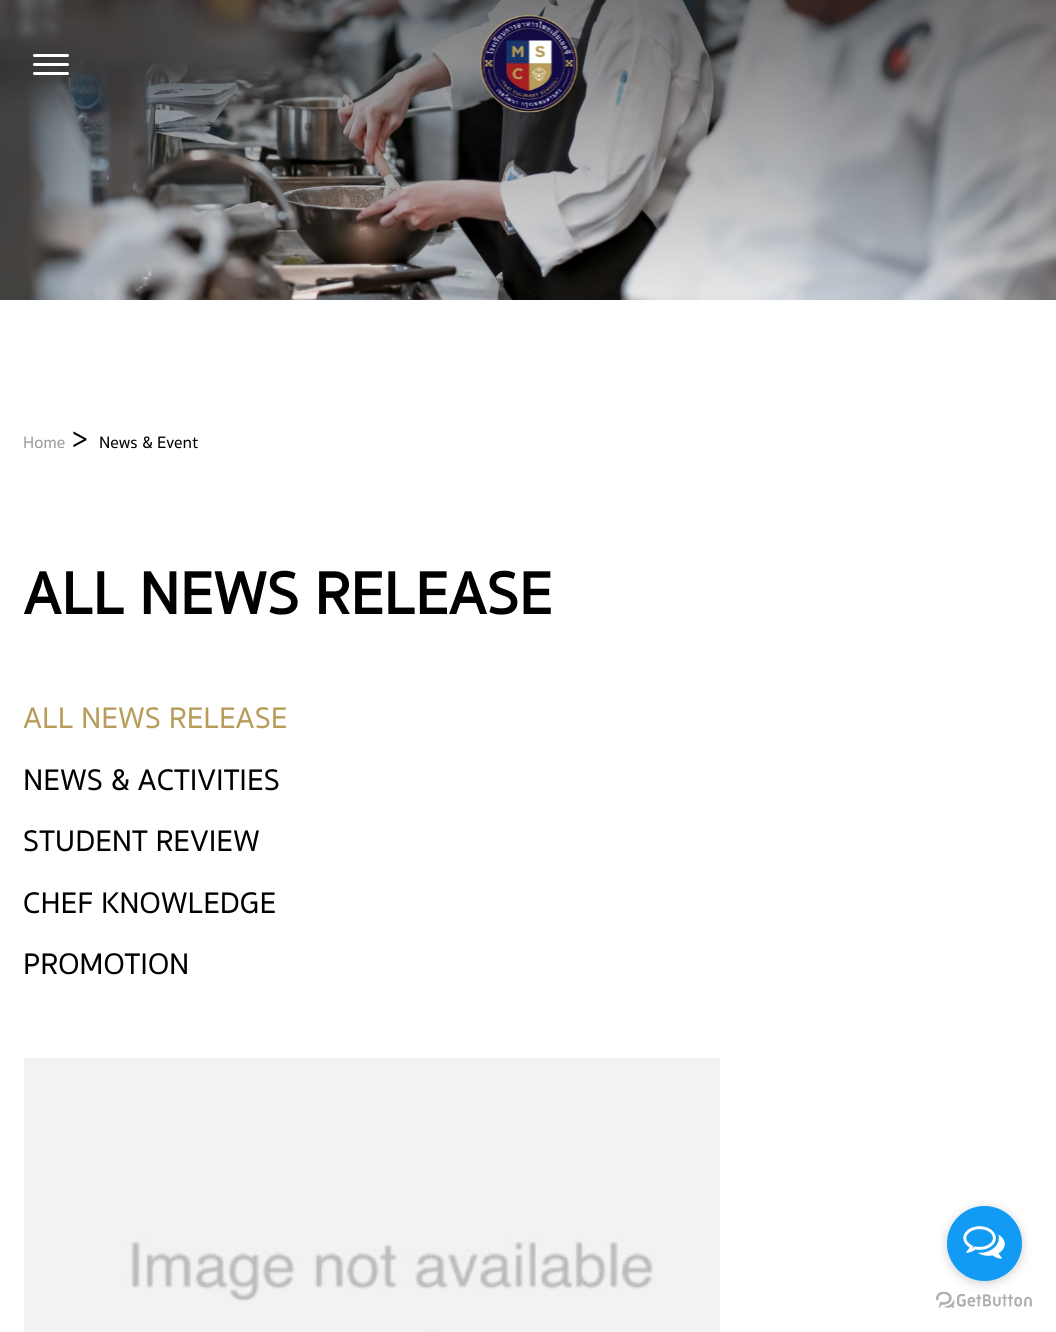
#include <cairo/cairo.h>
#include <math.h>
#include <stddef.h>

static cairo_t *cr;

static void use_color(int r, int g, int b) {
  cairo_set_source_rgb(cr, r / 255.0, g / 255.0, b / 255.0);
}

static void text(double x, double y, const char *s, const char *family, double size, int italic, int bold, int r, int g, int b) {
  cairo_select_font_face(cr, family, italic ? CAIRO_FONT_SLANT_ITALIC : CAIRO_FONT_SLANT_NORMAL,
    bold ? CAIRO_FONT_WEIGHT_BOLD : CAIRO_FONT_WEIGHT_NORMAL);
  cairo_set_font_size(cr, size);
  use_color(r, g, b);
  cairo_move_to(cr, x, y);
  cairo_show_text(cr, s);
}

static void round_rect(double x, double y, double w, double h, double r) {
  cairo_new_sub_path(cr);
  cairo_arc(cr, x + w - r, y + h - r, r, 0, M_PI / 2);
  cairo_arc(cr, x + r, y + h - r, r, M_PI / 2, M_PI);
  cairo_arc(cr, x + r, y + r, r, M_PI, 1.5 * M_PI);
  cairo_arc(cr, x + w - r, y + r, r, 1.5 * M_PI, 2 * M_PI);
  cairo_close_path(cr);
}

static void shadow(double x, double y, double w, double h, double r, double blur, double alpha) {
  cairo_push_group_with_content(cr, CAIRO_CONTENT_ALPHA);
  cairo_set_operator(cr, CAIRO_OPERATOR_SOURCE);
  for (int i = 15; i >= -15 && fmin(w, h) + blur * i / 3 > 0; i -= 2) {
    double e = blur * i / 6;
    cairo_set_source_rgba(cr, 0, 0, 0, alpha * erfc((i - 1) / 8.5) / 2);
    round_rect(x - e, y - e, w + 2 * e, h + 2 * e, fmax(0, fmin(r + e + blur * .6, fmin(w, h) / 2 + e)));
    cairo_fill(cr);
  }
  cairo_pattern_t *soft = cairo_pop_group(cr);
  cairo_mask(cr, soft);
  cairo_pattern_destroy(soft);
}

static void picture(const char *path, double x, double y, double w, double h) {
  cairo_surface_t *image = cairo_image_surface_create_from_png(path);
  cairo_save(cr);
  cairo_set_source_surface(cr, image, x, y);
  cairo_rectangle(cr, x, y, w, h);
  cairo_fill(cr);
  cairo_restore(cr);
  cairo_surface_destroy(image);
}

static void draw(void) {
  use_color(255, 255, 255);
  cairo_paint(cr);
  picture("img_01.png", 0, 0, 1056, 300);
  use_color(255, 255, 255);
  round_rect(33, 54, 36, 3, 1.5);
  cairo_fill(cr);
  round_rect(33, 63, 36, 3, 1.5);
  cairo_fill(cr);
  round_rect(33, 72, 36, 3, 1.5);
  cairo_fill(cr);
  picture("img_02.png", 480, 15, 98, 98);
  picture("img_03.png", 24, 1058, 696, 274);
  picture("img_05.png", 936, 1292, 96, 16);
  use_color(136, 136, 136);
  shadow(947, 1208, 75, 75, 37.5, 5, 0.4);
  use_color(18, 155, 244);
  cairo_arc(cr, 984.5, 1243.5, 37.5, 0, 2 * M_PI);
  cairo_fill(cr);
  picture("img_04.png", 963, 1226, 42, 33);
  text(23, 448, "Home", "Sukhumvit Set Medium", 15, 0, 0, 153, 153, 153);
  text(71, 448, ">", "Sukhumvit Set Medium", 27, 0, 0, 0, 0, 0);
  text(99, 448, "News & Event", "Sukhumvit Set Medium", 15, 0, 0, 0, 0, 0);
  text(23, 614, "ALL NEWS RELEASE", "Sukhumvit Set", 54, 0, 1, 0, 0, 0);
  text(23, 728, "ALL NEWS RELEASE", "Sukhumvit Set Medium", 27, 0, 0, 183, 156, 90);
  text(23, 790, "NEWS & ACTIVITIES", "Sukhumvit Set Medium", 27, 0, 0, 0, 0, 0);
  text(23, 851, "STUDENT REVIEW", "Sukhumvit Set Medium", 27, 0, 0, 0, 0, 0);
  text(23, 913, "CHEF KNOWLEDGE", "Sukhumvit Set Medium", 27, 0, 0, 0, 0, 0);
  text(23, 974, "PROMOTION", "Sukhumvit Set Medium", 27, 0, 0, 0, 0, 0);
}

int main(void) {
  cairo_surface_t *surface = cairo_image_surface_create(CAIRO_FORMAT_RGB24, 1056, 1332);
  cr = cairo_create(surface);
  cairo_font_options_t *options = cairo_font_options_create();
  cairo_font_options_set_hint_metrics(options, CAIRO_HINT_METRICS_OFF);
  cairo_font_options_set_hint_style(options, CAIRO_HINT_STYLE_NONE);
  cairo_set_font_options(cr, options);
  cairo_set_miter_limit(cr, 4);
  draw();
  cairo_surface_write_to_png(surface, "out.png");
  cairo_font_options_destroy(options);
  cairo_destroy(cr);
  cairo_surface_destroy(surface);
  return 0;
}
